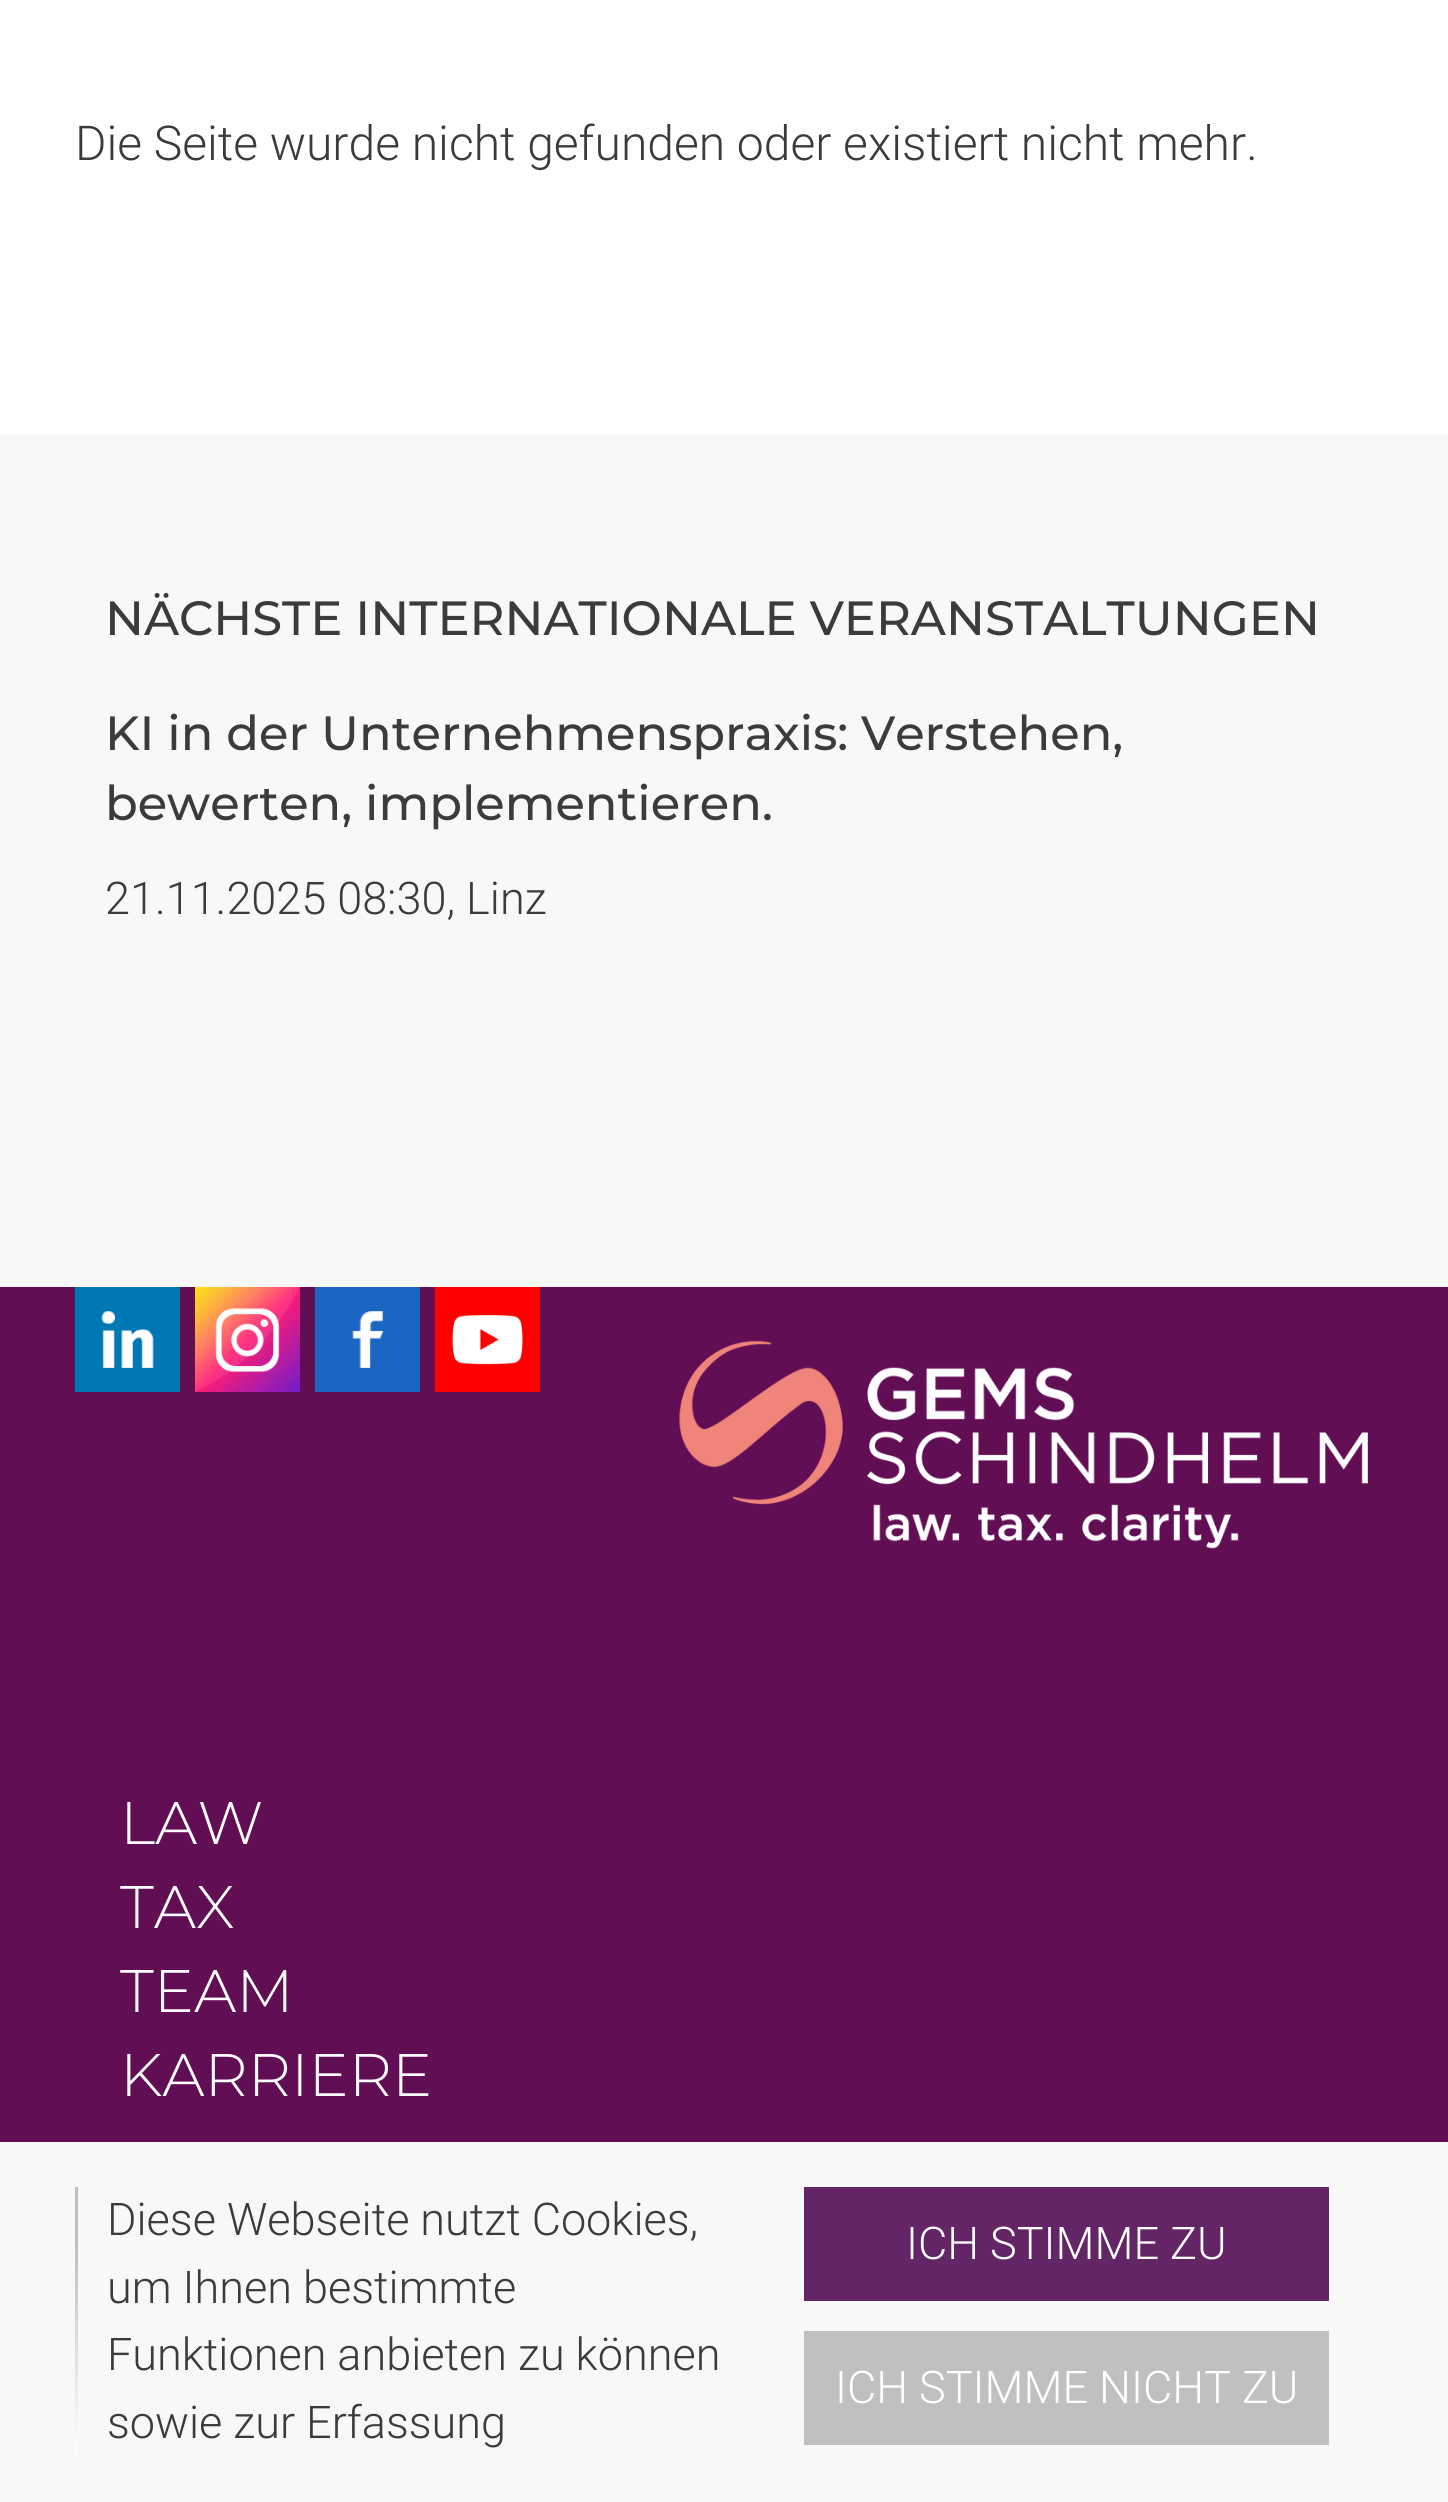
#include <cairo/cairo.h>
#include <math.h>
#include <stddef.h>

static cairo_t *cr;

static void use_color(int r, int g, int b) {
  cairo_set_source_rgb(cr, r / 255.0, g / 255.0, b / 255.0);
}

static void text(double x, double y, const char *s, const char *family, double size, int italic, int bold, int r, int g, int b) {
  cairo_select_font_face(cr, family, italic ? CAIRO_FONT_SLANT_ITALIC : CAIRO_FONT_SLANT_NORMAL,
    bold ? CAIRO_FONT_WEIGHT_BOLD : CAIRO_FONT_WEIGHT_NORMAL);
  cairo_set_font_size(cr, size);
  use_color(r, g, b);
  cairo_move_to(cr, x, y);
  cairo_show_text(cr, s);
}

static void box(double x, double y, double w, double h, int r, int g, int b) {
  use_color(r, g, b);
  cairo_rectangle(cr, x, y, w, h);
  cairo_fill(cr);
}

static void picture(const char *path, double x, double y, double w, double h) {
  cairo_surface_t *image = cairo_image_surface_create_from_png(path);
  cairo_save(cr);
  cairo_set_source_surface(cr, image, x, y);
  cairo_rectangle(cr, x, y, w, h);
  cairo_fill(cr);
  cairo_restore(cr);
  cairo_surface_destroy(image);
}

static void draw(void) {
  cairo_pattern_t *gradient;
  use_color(255, 255, 255);
  cairo_paint(cr);
  box(0, 435, 1448, 852, 248, 248, 248);
  box(0, 1287, 1448, 855, 98, 14, 85);
  picture("img_01.png", 75, 1287, 105, 105);
  picture("img_02.png", 195, 1287, 105, 105);
  picture("img_03.png", 315, 1287, 105, 105);
  picture("img_04.png", 435, 1287, 105, 105);
  picture("img_05.png", 679, 1340, 689, 209);
  box(0, 2142, 1448, 360, 248, 248, 248);
  gradient = cairo_pattern_create_linear(76, 2187, 77, 2457);
  cairo_pattern_add_color_stop_rgba(gradient, 0.23, 0.753, 0.753, 0.753, 1);
  cairo_pattern_add_color_stop_rgba(gradient, 1, 1, 1, 1, 1);
  cairo_set_source(cr, gradient);
  cairo_pattern_destroy(gradient);
  cairo_rectangle(cr, 75, 2187, 3, 270);
  cairo_fill(cr);
  box(804, 2187, 525, 114, 100, 37, 102);
  box(804, 2331, 525, 114, 192, 192, 192);
  text(75, 160, "Die Seite wurde nicht gefunden oder existiert nicht mehr.", "Roboto Light", 48, 0, 0, 59, 59, 59);
  text(105, 635, "NÄCHSTE INTERNATIONALE VERANSTALTUNGEN", "Montserrat Medium", 48, 0, 0, 59, 59, 59);
  text(105, 750, "KI in der Unternehmenspraxis: Verstehen,", "Montserrat Medium", 48, 0, 0, 59, 59, 59);
  text(105, 820, "bewerten, implementieren.", "Montserrat Medium", 48, 0, 0, 59, 59, 59);
  text(105, 914, "21.11.2025 08:30, Linz", "Roboto Light", 45, 0, 0, 59, 59, 59);
  text(120, 1844, "LAW", "Montserrat Light", 60, 0, 0, 255, 255, 255);
  text(120, 1928, "TAX", "Montserrat Light", 60, 0, 0, 255, 255, 255);
  text(120, 2012, "TEAM", "Montserrat Light", 60, 0, 0, 255, 255, 255);
  text(120, 2096, "KARRIERE", "Montserrat Light", 60, 0, 0, 255, 255, 255);
  text(107, 2235, "Diese Webseite nutzt Cookies,", "Roboto Light", 45, 0, 0, 59, 59, 59);
  text(107, 2303, "um Ihnen bestimmte", "Roboto Light", 45, 0, 0, 59, 59, 59);
  text(107, 2370, "Funktionen anbieten zu können", "Roboto Light", 45, 0, 0, 59, 59, 59);
  text(107, 2438, "sowie zur Erfassung", "Roboto Light", 45, 0, 0, 59, 59, 59);
  text(906, 2259, "ICH STIMME ZU", "Roboto Light", 45, 0, 0, 255, 255, 255);
  text(835, 2403, "ICH STIMME NICHT ZU", "Roboto Light", 45, 0, 0, 255, 255, 255);
}

int main(void) {
  cairo_surface_t *surface = cairo_image_surface_create(CAIRO_FORMAT_RGB24, 1448, 2502);
  cr = cairo_create(surface);
  cairo_font_options_t *options = cairo_font_options_create();
  cairo_font_options_set_hint_metrics(options, CAIRO_HINT_METRICS_OFF);
  cairo_font_options_set_hint_style(options, CAIRO_HINT_STYLE_NONE);
  cairo_set_font_options(cr, options);
  cairo_set_miter_limit(cr, 4);
  draw();
  cairo_surface_write_to_png(surface, "out.png");
  cairo_font_options_destroy(options);
  cairo_destroy(cr);
  cairo_surface_destroy(surface);
  return 0;
}
